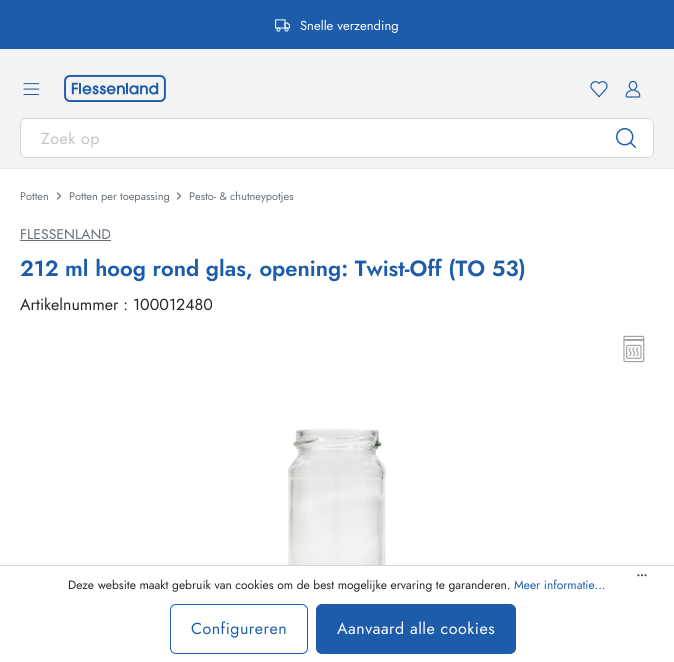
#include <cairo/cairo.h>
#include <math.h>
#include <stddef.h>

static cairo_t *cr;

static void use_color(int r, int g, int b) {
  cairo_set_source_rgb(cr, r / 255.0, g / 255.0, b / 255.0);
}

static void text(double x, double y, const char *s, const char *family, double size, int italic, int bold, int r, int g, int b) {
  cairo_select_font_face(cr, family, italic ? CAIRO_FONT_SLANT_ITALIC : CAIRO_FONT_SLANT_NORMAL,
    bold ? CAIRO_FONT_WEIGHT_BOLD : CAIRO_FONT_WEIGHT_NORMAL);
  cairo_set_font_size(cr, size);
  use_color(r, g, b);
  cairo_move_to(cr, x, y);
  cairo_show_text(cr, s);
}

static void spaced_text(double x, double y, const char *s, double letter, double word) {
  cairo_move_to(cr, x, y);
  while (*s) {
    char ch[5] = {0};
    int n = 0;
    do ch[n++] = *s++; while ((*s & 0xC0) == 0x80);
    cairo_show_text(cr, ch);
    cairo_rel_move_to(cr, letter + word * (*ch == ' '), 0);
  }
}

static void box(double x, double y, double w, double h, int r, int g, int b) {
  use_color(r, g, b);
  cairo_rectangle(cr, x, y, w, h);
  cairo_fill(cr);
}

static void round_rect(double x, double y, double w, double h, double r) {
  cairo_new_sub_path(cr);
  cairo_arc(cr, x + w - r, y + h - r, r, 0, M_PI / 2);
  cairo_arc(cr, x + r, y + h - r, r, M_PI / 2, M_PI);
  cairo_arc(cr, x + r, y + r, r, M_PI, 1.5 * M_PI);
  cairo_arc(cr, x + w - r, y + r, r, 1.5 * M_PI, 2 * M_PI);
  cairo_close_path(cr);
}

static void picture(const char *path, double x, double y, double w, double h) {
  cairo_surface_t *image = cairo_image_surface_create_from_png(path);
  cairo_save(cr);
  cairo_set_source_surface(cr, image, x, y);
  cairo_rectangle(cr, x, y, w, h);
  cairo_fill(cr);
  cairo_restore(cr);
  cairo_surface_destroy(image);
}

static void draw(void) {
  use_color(255, 255, 255);
  cairo_paint(cr);
  box(0, 0, 674, 49, 29, 92, 171);
  picture("img_01.png", 275, 19, 15, 13);
  box(0, 49, 674, 119, 243, 243, 243);
  picture("img_02.png", 23, 83, 17, 12);
  picture("img_03.png", 64, 75, 102, 27);
  picture("img_04.png", 590, 81, 18, 17);
  picture("img_05.png", 625, 80, 16, 18);
  use_color(255, 255, 255);
  cairo_new_path(cr);
  cairo_move_to(cr, 26, 119);
  cairo_line_to(cr, 600, 119);
  cairo_line_to(cr, 600, 157);
  cairo_line_to(cr, 26, 157);
  cairo_curve_to(cr, 23, 157, 21, 155, 21, 152);
  cairo_line_to(cr, 21, 124);
  cairo_curve_to(cr, 21, 121, 23, 119, 26, 119);
  cairo_close_path(cr);
  cairo_fill(cr);
  use_color(210, 214, 217);
  cairo_set_fill_rule(cr, CAIRO_FILL_RULE_EVEN_ODD);
  cairo_new_path(cr);
  cairo_move_to(cr, 26, 118);
  cairo_line_to(cr, 600, 118);
  cairo_line_to(cr, 600, 158);
  cairo_line_to(cr, 26, 158);
  cairo_curve_to(cr, 23, 158, 20, 155, 20, 152);
  cairo_line_to(cr, 20, 124);
  cairo_curve_to(cr, 20, 121, 23, 118, 26, 118);
  cairo_close_path(cr);
  cairo_move_to(cr, 26, 119);
  cairo_line_to(cr, 600, 119);
  cairo_line_to(cr, 600, 157);
  cairo_line_to(cr, 26, 157);
  cairo_curve_to(cr, 23, 157, 21, 155, 21, 152);
  cairo_line_to(cr, 21, 124);
  cairo_curve_to(cr, 21, 121, 23, 119, 26, 119);
  cairo_close_path(cr);
  cairo_fill(cr);
  use_color(255, 255, 255);
  cairo_new_path(cr);
  cairo_move_to(cr, 599, 118);
  cairo_line_to(cr, 648, 118);
  cairo_curve_to(cr, 651.5, 118, 654, 120.5, 654, 124);
  cairo_line_to(cr, 654, 152);
  cairo_curve_to(cr, 654, 155.5, 651.5, 158, 648, 158);
  cairo_line_to(cr, 599, 158);
  cairo_close_path(cr);
  cairo_fill(cr);
  use_color(210, 214, 217);
  cairo_new_path(cr);
  cairo_move_to(cr, 599, 118);
  cairo_line_to(cr, 648, 118);
  cairo_curve_to(cr, 651, 118, 654, 121, 654, 124);
  cairo_line_to(cr, 654, 152);
  cairo_curve_to(cr, 654, 155, 651, 158, 648, 158);
  cairo_line_to(cr, 599, 158);
  cairo_close_path(cr);
  cairo_move_to(cr, 599, 119);
  cairo_line_to(cr, 648, 119);
  cairo_curve_to(cr, 651, 119, 653, 121, 653, 124);
  cairo_line_to(cr, 653, 152);
  cairo_curve_to(cr, 653, 155, 651, 157, 648, 157);
  cairo_line_to(cr, 599, 157);
  cairo_close_path(cr);
  cairo_fill(cr);
  picture("img_06.png", 616, 128, 20, 20);
  box(0, 168, 674, 1, 230, 235, 238);
  picture("img_07.png", 56, 192, 6, 8);
  picture("img_07.png", 176, 192, 6, 8);
  box(20, 240, 91, 1, 103, 111, 120);
  picture("img_08.png", 623, 335, 22, 28);
  picture("img_09.png", 287, 428, 100, 137);
  picture("img_10.png", 637, 574, 10, 3);
  box(0, 565, 674, 1, 210, 214, 217);
  round_rect(170.5, 604.5, 137, 49, 5.5);
  use_color(29, 92, 171);
  cairo_set_line_width(cr, 1);
  cairo_stroke(cr);
  round_rect(316.5, 604.5, 199, 49, 5.5);
  cairo_fill_preserve(cr);
  cairo_stroke(cr);
  text(300, 30, "Snelle verzending", "Jost", 13, 0, 0, 255, 255, 255);
  cairo_set_font_size(cr, 16);
  use_color(195, 195, 195);
  spaced_text(41, 144, "Zoek op", 0.5, 0);
  text(20, 200, "Potten", "Jost", 11, 0, 0, 103, 111, 120);
  text(69, 200, "Potten per toepassing", "Jost", 11, 0, 0, 103, 111, 120);
  text(189, 200, "Pesto- & chutneypotjes", "Jost", 11, 0, 0, 103, 111, 120);
  text(20, 239, "FLESSENLAND", "Jost", 14, 0, 0, 103, 111, 120);
  text(20, 276, "212 ml hoog rond glas, opening: Twist-Off (TO 53)", "Jost SemiBold", 22, 0, 0, 29, 92, 171);
  text(20, 310, "Artikelnummer : 100012480", "Jost", 16, 0, 0, 36, 40, 44);
  text(68, 589, "Deze website maakt gebruik van cookies om de best mogelijke ervaring te garanderen.", "Jost", 12, 0, 0, 36, 40, 44);
  text(514, 589, "Meer informatie...", "Jost", 12, 0, 0, 29, 92, 171);
  cairo_set_font_size(cr, 16);
  spaced_text(191, 634, "Configureren", 0.5, 0);
  use_color(255, 255, 255);
  spaced_text(337, 634, "Aanvaard alle cookies", 0.5, 0);
}

int main(void) {
  cairo_surface_t *surface = cairo_image_surface_create(CAIRO_FORMAT_RGB24, 674, 662);
  cr = cairo_create(surface);
  cairo_font_options_t *options = cairo_font_options_create();
  cairo_font_options_set_hint_metrics(options, CAIRO_HINT_METRICS_OFF);
  cairo_font_options_set_hint_style(options, CAIRO_HINT_STYLE_NONE);
  cairo_set_font_options(cr, options);
  cairo_set_miter_limit(cr, 4);
  draw();
  cairo_surface_write_to_png(surface, "out.png");
  cairo_font_options_destroy(options);
  cairo_destroy(cr);
  cairo_surface_destroy(surface);
  return 0;
}
